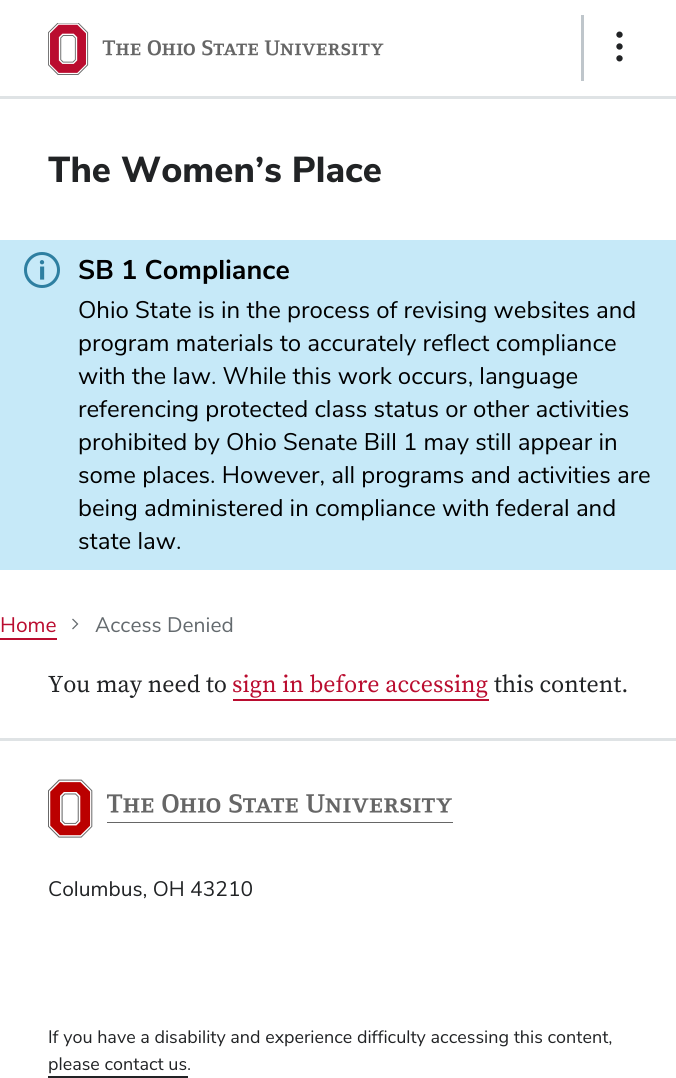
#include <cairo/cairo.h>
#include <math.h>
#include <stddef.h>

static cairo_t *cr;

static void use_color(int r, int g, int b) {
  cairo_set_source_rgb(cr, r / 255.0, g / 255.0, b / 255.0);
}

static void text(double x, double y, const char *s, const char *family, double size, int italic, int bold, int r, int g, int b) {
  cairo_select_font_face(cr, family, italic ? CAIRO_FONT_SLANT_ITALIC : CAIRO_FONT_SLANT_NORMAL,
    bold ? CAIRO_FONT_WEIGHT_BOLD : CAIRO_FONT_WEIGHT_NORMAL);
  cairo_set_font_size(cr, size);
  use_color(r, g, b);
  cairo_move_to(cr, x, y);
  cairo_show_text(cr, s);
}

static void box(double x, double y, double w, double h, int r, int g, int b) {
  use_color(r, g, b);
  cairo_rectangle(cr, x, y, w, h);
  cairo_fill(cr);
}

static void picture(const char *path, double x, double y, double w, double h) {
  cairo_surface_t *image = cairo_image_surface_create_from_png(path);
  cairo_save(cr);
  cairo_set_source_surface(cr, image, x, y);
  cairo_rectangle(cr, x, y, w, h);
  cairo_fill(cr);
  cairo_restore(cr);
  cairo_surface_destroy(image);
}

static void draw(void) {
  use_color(255, 255, 255);
  cairo_paint(cr);
  box(0, 96, 676, 3, 223, 227, 229);
  picture("img_01.png", 48, 23, 336, 52);
  box(581, 15, 3, 66, 191, 198, 203);
  picture("img_02.png", 616, 31, 7, 31);
  box(0, 240, 676, 330, 198, 233, 248);
  picture("img_03.png", 24, 252, 36, 36);
  box(0, 638, 57, 2, 186, 12, 47);
  picture("img_04.png", 72, 618, 7, 12);
  box(233, 699, 256, 2, 186, 12, 47);
  box(0, 738, 676, 3, 223, 227, 229);
  picture("img_05.png", 48, 779, 405, 59);
  box(48, 1076, 140, 2, 33, 35, 37);
  text(48, 182, "The Women’s Place", "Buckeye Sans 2 ExtraBold", 36, 0, 0, 33, 35, 37);
  text(78, 279, "SB 1 Compliance", "Buckeye Sans 2", 27, 0, 1, 0, 0, 0);
  text(78, 318, "Ohio State is in the process of revising websites and", "Buckeye Sans 2", 24, 0, 0, 0, 0, 0);
  text(78, 351, "program materials to accurately reflect compliance", "Buckeye Sans 2", 24, 0, 0, 0, 0, 0);
  text(78, 384, "with the law. While this work occurs, language", "Buckeye Sans 2", 24, 0, 0, 0, 0, 0);
  text(78, 417, "referencing protected class status or other activities", "Buckeye Sans 2", 24, 0, 0, 0, 0, 0);
  text(78, 450, "prohibited by Ohio Senate Bill 1 may still appear in", "Buckeye Sans 2", 24, 0, 0, 0, 0, 0);
  text(78, 483, "some places. However, all programs and activities are", "Buckeye Sans 2", 24, 0, 0, 0, 0, 0);
  text(78, 516, "being administered in compliance with federal and", "Buckeye Sans 2", 24, 0, 0, 0, 0, 0);
  text(78, 549, "state law.", "Buckeye Sans 2", 24, 0, 0, 0, 0, 0);
  text(0, 632, "Home", "Buckeye Sans 2", 21, 0, 0, 186, 12, 47);
  text(95, 632, "Access Denied", "Buckeye Sans 2", 21, 0, 0, 100, 106, 110);
  text(48, 692, "You may need to", "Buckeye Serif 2", 24, 0, 0, 33, 35, 37);
  text(232, 692, "sign in before accessing", "Buckeye Serif 2", 24, 0, 0, 186, 12, 47);
  text(494, 692, "this content.", "Buckeye Serif 2", 24, 0, 0, 33, 35, 37);
  text(48, 896, "Columbus, OH 43210", "Buckeye Sans 2", 21, 0, 0, 33, 35, 37);
  text(48, 1043, "If you have a disability and experience difficulty accessing this content,", "Buckeye Sans 2", 18, 0, 0, 33, 35, 37);
  text(48, 1070, "please contact us.", "Buckeye Sans 2", 18, 0, 0, 33, 35, 37);
}

int main(void) {
  cairo_surface_t *surface = cairo_image_surface_create(CAIRO_FORMAT_RGB24, 676, 1078);
  cr = cairo_create(surface);
  cairo_font_options_t *options = cairo_font_options_create();
  cairo_font_options_set_hint_metrics(options, CAIRO_HINT_METRICS_OFF);
  cairo_font_options_set_hint_style(options, CAIRO_HINT_STYLE_NONE);
  cairo_set_font_options(cr, options);
  cairo_set_miter_limit(cr, 4);
  draw();
  cairo_surface_write_to_png(surface, "out.png");
  cairo_font_options_destroy(options);
  cairo_destroy(cr);
  cairo_surface_destroy(surface);
  return 0;
}
